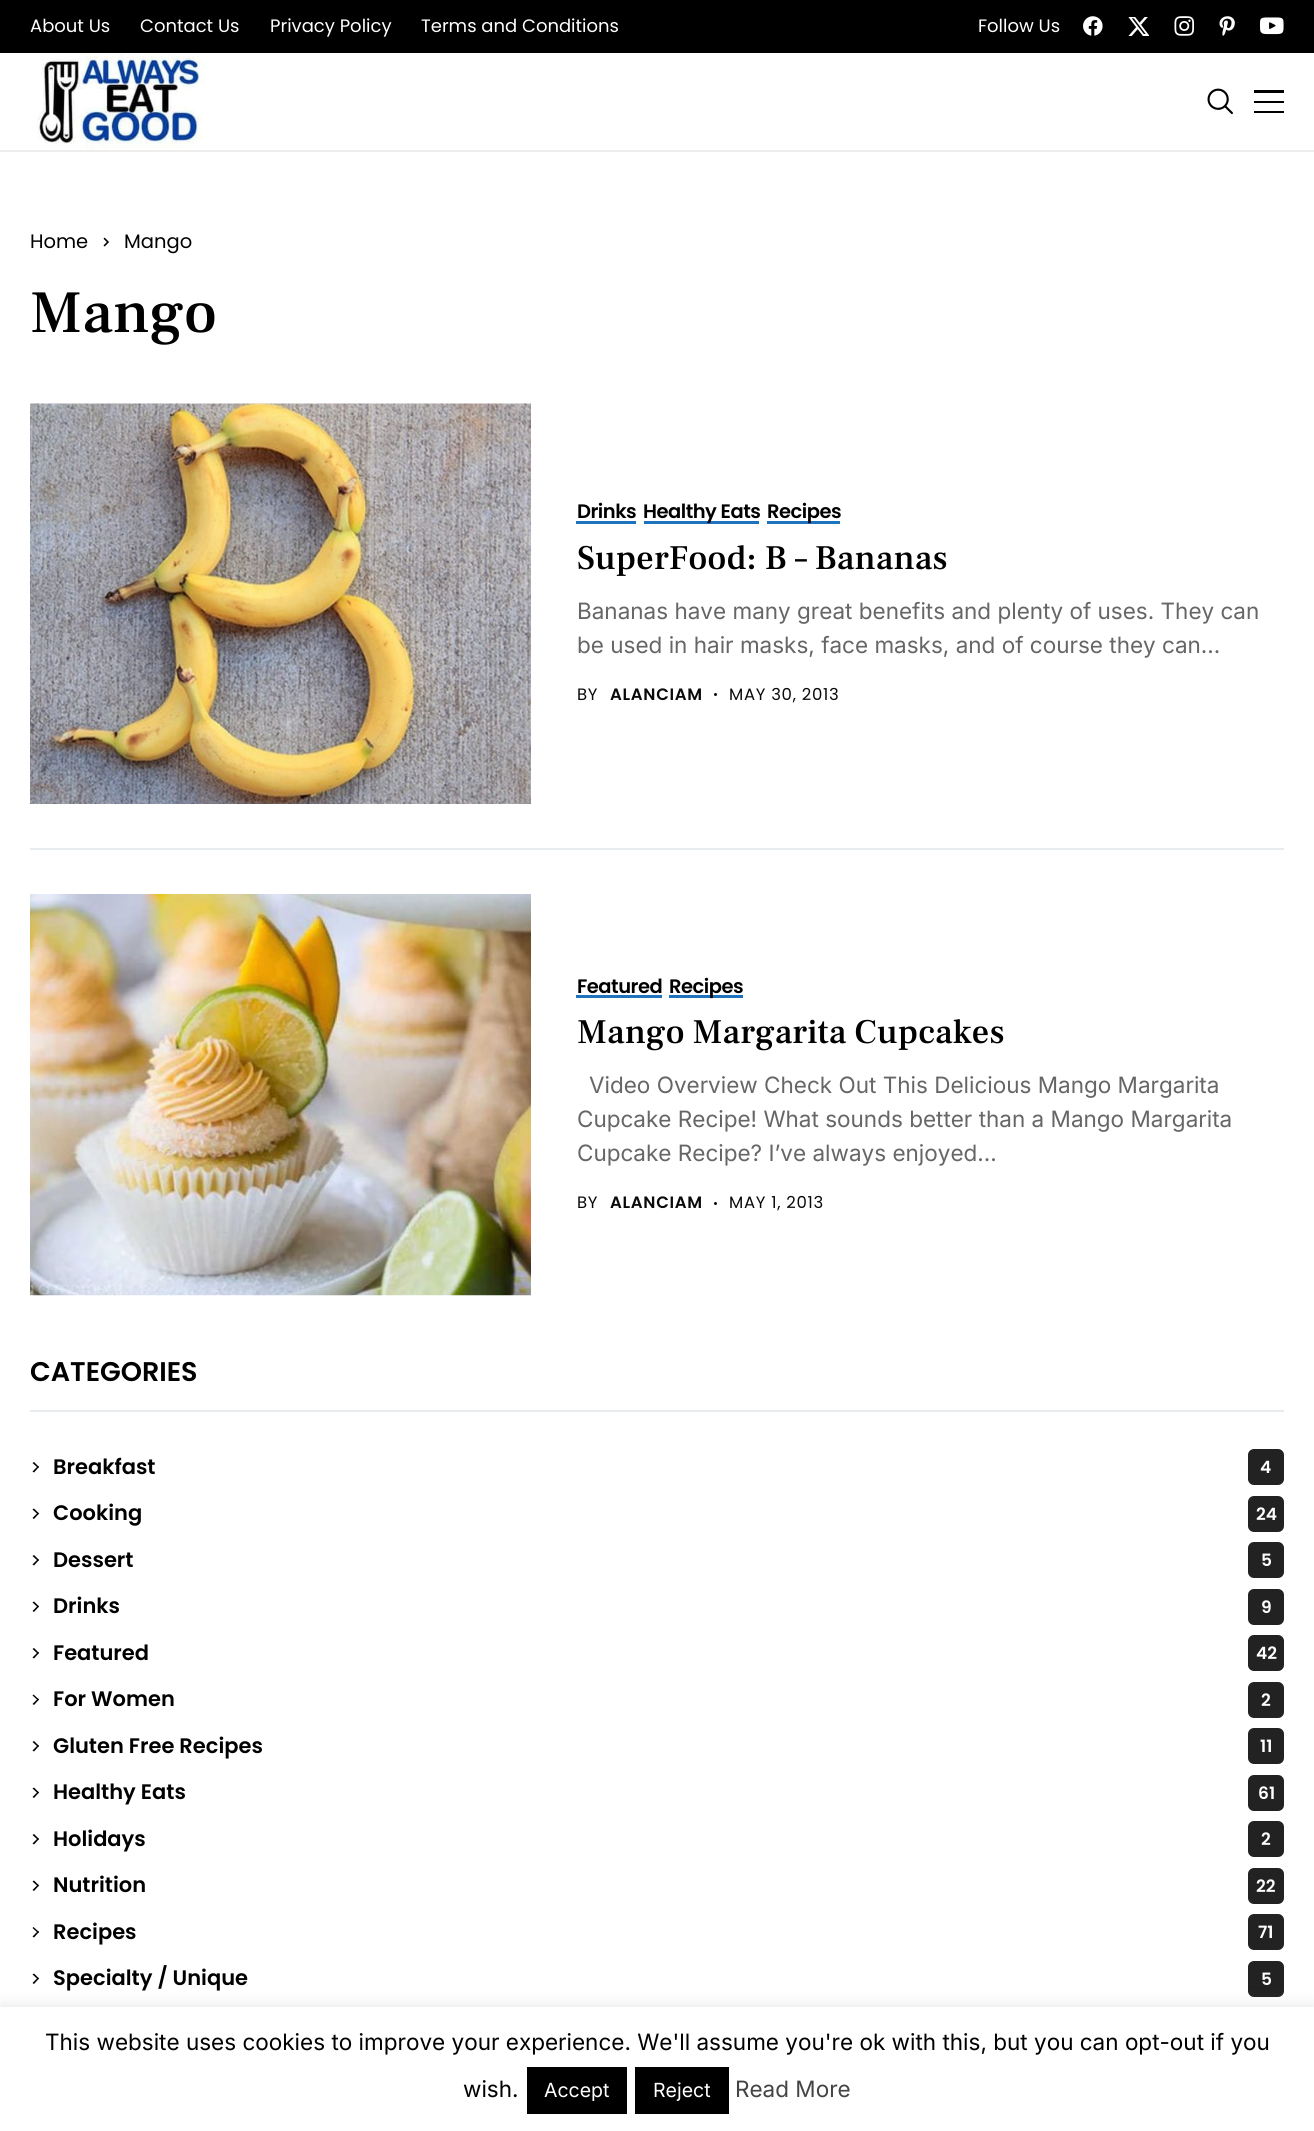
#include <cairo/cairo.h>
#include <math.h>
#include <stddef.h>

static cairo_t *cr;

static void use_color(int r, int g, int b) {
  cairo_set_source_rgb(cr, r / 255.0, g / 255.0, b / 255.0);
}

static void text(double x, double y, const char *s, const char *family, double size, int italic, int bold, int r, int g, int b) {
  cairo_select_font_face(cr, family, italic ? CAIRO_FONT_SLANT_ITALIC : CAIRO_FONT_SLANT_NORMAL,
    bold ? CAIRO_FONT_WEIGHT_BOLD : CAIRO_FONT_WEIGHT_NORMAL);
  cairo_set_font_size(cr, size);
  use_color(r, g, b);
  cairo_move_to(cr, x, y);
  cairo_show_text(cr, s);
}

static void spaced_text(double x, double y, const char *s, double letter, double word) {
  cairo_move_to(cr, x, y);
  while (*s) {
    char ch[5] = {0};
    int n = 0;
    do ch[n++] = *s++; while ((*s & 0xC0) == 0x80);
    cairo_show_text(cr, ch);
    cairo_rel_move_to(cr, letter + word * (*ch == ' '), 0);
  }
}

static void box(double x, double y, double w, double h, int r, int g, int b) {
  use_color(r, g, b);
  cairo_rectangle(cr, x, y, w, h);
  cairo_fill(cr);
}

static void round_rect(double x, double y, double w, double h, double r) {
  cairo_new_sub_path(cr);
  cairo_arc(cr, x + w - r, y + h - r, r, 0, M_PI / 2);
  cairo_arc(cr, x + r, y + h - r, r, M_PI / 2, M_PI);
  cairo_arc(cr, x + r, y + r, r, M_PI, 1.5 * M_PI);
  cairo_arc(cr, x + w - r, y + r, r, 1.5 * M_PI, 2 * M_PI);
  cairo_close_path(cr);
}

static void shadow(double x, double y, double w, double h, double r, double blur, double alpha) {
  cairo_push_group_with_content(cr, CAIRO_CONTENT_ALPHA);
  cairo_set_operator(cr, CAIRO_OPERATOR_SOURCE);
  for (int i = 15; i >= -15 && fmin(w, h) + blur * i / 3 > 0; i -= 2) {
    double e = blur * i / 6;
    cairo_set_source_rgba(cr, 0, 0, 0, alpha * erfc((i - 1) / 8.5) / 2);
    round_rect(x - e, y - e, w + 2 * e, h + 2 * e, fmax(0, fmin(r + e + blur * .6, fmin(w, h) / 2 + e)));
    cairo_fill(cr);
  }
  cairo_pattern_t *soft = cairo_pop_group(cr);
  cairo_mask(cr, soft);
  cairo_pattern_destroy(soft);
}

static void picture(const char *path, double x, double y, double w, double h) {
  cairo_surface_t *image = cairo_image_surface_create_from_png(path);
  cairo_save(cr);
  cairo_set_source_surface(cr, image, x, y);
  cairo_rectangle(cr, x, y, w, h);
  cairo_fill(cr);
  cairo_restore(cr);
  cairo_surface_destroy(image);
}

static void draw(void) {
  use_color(255, 255, 255);
  cairo_paint(cr);
  box(0, 0, 1314, 53, 0, 0, 0);
  picture("img_01.png", 1083, 16, 20, 20);
  picture("img_02.png", 1128, 17, 21, 19);
  picture("img_03.png", 1174, 16, 20, 20);
  picture("img_04.png", 1219, 16, 16, 20);
  picture("img_05.png", 1260, 17, 24, 18);
  box(0, 150, 1314, 2, 238, 237, 235);
  picture("img_06.png", 37, 54, 169, 95);
  picture("img_07.png", 1207, 88, 26, 27);
  box(1254, 90, 30, 3, 0, 0, 0);
  box(1254, 101, 30, 2, 0, 0, 0);
  box(1254, 111, 30, 2, 0, 0, 0);
  picture("img_08.png", 103, 237, 6, 10);
  picture("img_09.png", 30, 403, 501, 401);
  box(576, 521, 60, 3, 30, 115, 190);
  box(644, 521, 115, 3, 30, 115, 190);
  box(767, 521, 73, 3, 30, 115, 190);
  use_color(10, 10, 10);
  cairo_arc(cr, 715.5, 694.5, 1.5, 0, 2 * M_PI);
  cairo_fill(cr);
  box(30, 848, 1254, 2, 233, 236, 239);
  picture("img_10.png", 30, 894, 501, 402);
  box(576, 995, 86, 3, 30, 115, 190);
  box(669, 995, 74, 3, 30, 115, 190);
  use_color(10, 10, 10);
  cairo_arc(cr, 715.5, 1203.5, 1.5, 0, 2 * M_PI);
  cairo_fill(cr);
  box(30, 1410, 1254, 2, 233, 236, 239);
  use_color(0, 0, 0);
  cairo_new_path(cr);
  cairo_move_to(cr, 32.5, 1463);
  cairo_line_to(cr, 34, 1462);
  cairo_line_to(cr, 39, 1467);
  cairo_line_to(cr, 38, 1468);
  cairo_close_path(cr);
  cairo_fill(cr);
  cairo_new_path(cr);
  cairo_move_to(cr, 32.5, 1471.5);
  cairo_line_to(cr, 38, 1466);
  cairo_line_to(cr, 39, 1467);
  cairo_line_to(cr, 34, 1472.5);
  cairo_close_path(cr);
  cairo_move_to(cr, 32.5, 1509.5);
  cairo_line_to(cr, 34, 1508.5);
  cairo_line_to(cr, 39, 1513.5);
  cairo_line_to(cr, 38, 1514.5);
  cairo_close_path(cr);
  cairo_fill(cr);
  use_color(34, 34, 34);
  round_rect(1248, 1449, 36, 36, 6);
  cairo_fill(cr);
  use_color(0, 0, 0);
  cairo_new_path(cr);
  cairo_move_to(cr, 32.5, 1518);
  cairo_line_to(cr, 38, 1512.5);
  cairo_line_to(cr, 39, 1513.5);
  cairo_line_to(cr, 34, 1519);
  cairo_close_path(cr);
  cairo_move_to(cr, 32.5, 1556);
  cairo_line_to(cr, 34, 1555);
  cairo_line_to(cr, 39, 1560);
  cairo_line_to(cr, 38, 1561);
  cairo_close_path(cr);
  cairo_fill(cr);
  use_color(34, 34, 34);
  round_rect(1248, 1496, 36, 36, 6);
  cairo_fill(cr);
  use_color(0, 0, 0);
  cairo_new_path(cr);
  cairo_move_to(cr, 32.5, 1564.5);
  cairo_line_to(cr, 38, 1559);
  cairo_line_to(cr, 39, 1560);
  cairo_line_to(cr, 34, 1565.5);
  cairo_close_path(cr);
  cairo_move_to(cr, 32.5, 1602.5);
  cairo_line_to(cr, 34, 1601.5);
  cairo_line_to(cr, 39, 1606.5);
  cairo_line_to(cr, 38, 1607.5);
  cairo_close_path(cr);
  cairo_fill(cr);
  use_color(34, 34, 34);
  round_rect(1248, 1542, 36, 36, 6);
  cairo_fill(cr);
  use_color(0, 0, 0);
  cairo_new_path(cr);
  cairo_move_to(cr, 32.5, 1611);
  cairo_line_to(cr, 38, 1605.5);
  cairo_line_to(cr, 39, 1606.5);
  cairo_line_to(cr, 34, 1612);
  cairo_close_path(cr);
  cairo_move_to(cr, 32.5, 1649);
  cairo_line_to(cr, 34, 1648);
  cairo_line_to(cr, 39, 1653);
  cairo_line_to(cr, 38, 1654);
  cairo_close_path(cr);
  cairo_fill(cr);
  use_color(34, 34, 34);
  round_rect(1248, 1589, 36, 36, 6);
  cairo_fill(cr);
  use_color(0, 0, 0);
  cairo_new_path(cr);
  cairo_move_to(cr, 32.5, 1657.5);
  cairo_line_to(cr, 38, 1652);
  cairo_line_to(cr, 39, 1653);
  cairo_line_to(cr, 34, 1658.5);
  cairo_close_path(cr);
  cairo_move_to(cr, 32.5, 1695.5);
  cairo_line_to(cr, 33.5, 1694.5);
  cairo_line_to(cr, 39, 1699.5);
  cairo_line_to(cr, 38, 1700.5);
  cairo_close_path(cr);
  cairo_fill(cr);
  use_color(34, 34, 34);
  round_rect(1248, 1635, 36, 36, 6);
  cairo_fill(cr);
  use_color(0, 0, 0);
  cairo_new_path(cr);
  cairo_move_to(cr, 32.5, 1704);
  cairo_line_to(cr, 38, 1698.5);
  cairo_line_to(cr, 39, 1699.5);
  cairo_line_to(cr, 34, 1705);
  cairo_close_path(cr);
  cairo_move_to(cr, 32.5, 1742);
  cairo_line_to(cr, 34, 1741);
  cairo_line_to(cr, 39, 1746);
  cairo_line_to(cr, 38, 1747);
  cairo_close_path(cr);
  cairo_fill(cr);
  use_color(34, 34, 34);
  round_rect(1248, 1682, 36, 36, 6);
  cairo_fill(cr);
  use_color(0, 0, 0);
  cairo_new_path(cr);
  cairo_move_to(cr, 32.5, 1750.5);
  cairo_line_to(cr, 38, 1745);
  cairo_line_to(cr, 39, 1746);
  cairo_line_to(cr, 34, 1751.5);
  cairo_close_path(cr);
  cairo_move_to(cr, 32.5, 1788.5);
  cairo_line_to(cr, 34, 1787.5);
  cairo_line_to(cr, 39, 1792.5);
  cairo_line_to(cr, 38, 1793.5);
  cairo_close_path(cr);
  cairo_fill(cr);
  use_color(34, 34, 34);
  round_rect(1248, 1728, 36, 36, 6);
  cairo_fill(cr);
  use_color(0, 0, 0);
  cairo_new_path(cr);
  cairo_move_to(cr, 32.5, 1797);
  cairo_line_to(cr, 38, 1791.5);
  cairo_line_to(cr, 39, 1792.5);
  cairo_line_to(cr, 34, 1798);
  cairo_close_path(cr);
  cairo_move_to(cr, 32.5, 1835);
  cairo_line_to(cr, 34, 1834);
  cairo_line_to(cr, 39, 1839);
  cairo_line_to(cr, 38, 1840);
  cairo_close_path(cr);
  cairo_fill(cr);
  use_color(34, 34, 34);
  round_rect(1248, 1775, 36, 36, 6);
  cairo_fill(cr);
  use_color(0, 0, 0);
  cairo_new_path(cr);
  cairo_move_to(cr, 32.5, 1843.5);
  cairo_line_to(cr, 38, 1838);
  cairo_line_to(cr, 39, 1839);
  cairo_line_to(cr, 34, 1844.5);
  cairo_close_path(cr);
  cairo_move_to(cr, 32.5, 1881.5);
  cairo_line_to(cr, 34, 1880.5);
  cairo_line_to(cr, 39, 1885.5);
  cairo_line_to(cr, 38, 1886.5);
  cairo_close_path(cr);
  cairo_fill(cr);
  use_color(34, 34, 34);
  round_rect(1248, 1821, 36, 36, 6);
  cairo_fill(cr);
  use_color(0, 0, 0);
  cairo_new_path(cr);
  cairo_move_to(cr, 32.5, 1890);
  cairo_line_to(cr, 38, 1884.5);
  cairo_line_to(cr, 39, 1885.5);
  cairo_line_to(cr, 34, 1891);
  cairo_close_path(cr);
  cairo_move_to(cr, 32.5, 1928);
  cairo_line_to(cr, 33.5, 1927);
  cairo_line_to(cr, 39, 1932);
  cairo_line_to(cr, 38, 1933);
  cairo_close_path(cr);
  cairo_fill(cr);
  use_color(34, 34, 34);
  round_rect(1248, 1868, 36, 36, 6);
  cairo_fill(cr);
  use_color(0, 0, 0);
  cairo_new_path(cr);
  cairo_move_to(cr, 32.5, 1936.5);
  cairo_line_to(cr, 38, 1931);
  cairo_line_to(cr, 39, 1932);
  cairo_line_to(cr, 34, 1937.5);
  cairo_close_path(cr);
  cairo_move_to(cr, 32.5, 1974.5);
  cairo_line_to(cr, 34, 1973.5);
  cairo_line_to(cr, 39, 1978.5);
  cairo_line_to(cr, 38, 1979.5);
  cairo_close_path(cr);
  cairo_fill(cr);
  use_color(34, 34, 34);
  round_rect(1248, 1914, 36, 36, 6);
  cairo_fill(cr);
  use_color(0, 0, 0);
  cairo_new_path(cr);
  cairo_move_to(cr, 32.5, 1983);
  cairo_line_to(cr, 38, 1977.5);
  cairo_line_to(cr, 39, 1978.5);
  cairo_line_to(cr, 34, 1984);
  cairo_close_path(cr);
  cairo_fill(cr);
  use_color(34, 34, 34);
  round_rect(1248, 1961, 36, 36, 6);
  cairo_fill(cr);
  use_color(172, 171, 171);
  shadow(0, 2006, 1314, 124, 0, 7.5, 0.3);
  box(0, 2007, 1314, 124, 255, 255, 255);
  box(527, 2067, 100, 47, 0, 0, 0);
  box(635, 2067, 94, 47, 0, 0, 0);
  text(30, 32, "About Us", "Poppins", 18, 0, 0, 255, 255, 255);
  text(140, 32, "Contact Us", "Poppins", 18, 0, 0, 255, 255, 255);
  text(270, 32, "Privacy Policy", "Poppins", 18, 0, 0, 255, 255, 255);
  text(421, 32, "Terms and Conditions", "Poppins", 18, 0, 0, 255, 255, 255);
  text(978, 32, "Follow Us", "Poppins", 18, 0, 0, 255, 255, 255);
  text(30, 248, "Home", "Poppins", 19.5, 0, 0, 0, 0, 0);
  text(124, 248, "Mango", "Poppins", 19.5, 0, 0, 0, 0, 0);
  text(30, 332, "Mango", "Frank Ruhl Libre Medium", 60, 0, 0, 0, 0, 0);
  cairo_select_font_face(cr, "Poppins SemiBold", CAIRO_FONT_SLANT_NORMAL, CAIRO_FONT_WEIGHT_NORMAL);
  cairo_set_font_size(cr, 19.5);
  spaced_text(577, 518, "Drinks", -0.5, 0);
  spaced_text(643, 518, "Healthy Eats", -0.5, 0);
  spaced_text(767, 518, "Recipes", -0.5, 0);
  text(577, 569, "SuperFood: B – Bananas", "Frank Ruhl Libre Medium", 34.5, 0, 0, 0, 0, 0);
  text(577, 619, "Bananas have many great benefits and plenty of uses. They can", "Inter", 22.5, 0, 0, 102, 102, 102);
  text(577, 653, "be used in hair masks, face masks, and of course they can...", "Inter", 22.5, 0, 0, 102, 102, 102);
  cairo_select_font_face(cr, "Poppins", CAIRO_FONT_SLANT_NORMAL, CAIRO_FONT_WEIGHT_NORMAL);
  cairo_set_font_size(cr, 16.5);
  use_color(10, 10, 10);
  spaced_text(577, 700, "BY", 0.7, 0);
  cairo_select_font_face(cr, "Poppins SemiBold", CAIRO_FONT_SLANT_NORMAL, CAIRO_FONT_WEIGHT_NORMAL);
  spaced_text(610, 700, "ALANCIAM", 0.7, 0);
  cairo_select_font_face(cr, "Poppins", CAIRO_FONT_SLANT_NORMAL, CAIRO_FONT_WEIGHT_NORMAL);
  spaced_text(729, 700, "MAY 30, 2013", 0.7, 0);
  cairo_select_font_face(cr, "Poppins SemiBold", CAIRO_FONT_SLANT_NORMAL, CAIRO_FONT_WEIGHT_NORMAL);
  cairo_set_font_size(cr, 19.5);
  use_color(0, 0, 0);
  spaced_text(577, 993, "Featured", -0.5, 0);
  spaced_text(669, 993, "Recipes", -0.5, 0);
  text(577, 1043, "Mango Margarita Cupcakes", "Frank Ruhl Libre Medium", 34.5, 0, 0, 0, 0, 0);
  text(589, 1093, "Video Overview Check Out This Delicious Mango Margarita", "Inter", 22.5, 0, 0, 102, 102, 102);
  text(577, 1127, "Cupcake Recipe! What sounds better than a Mango Margarita", "Inter", 22.5, 0, 0, 102, 102, 102);
  text(577, 1161, "Cupcake Recipe? I’ve always enjoyed...", "Inter", 22.5, 0, 0, 102, 102, 102);
  cairo_select_font_face(cr, "Poppins", CAIRO_FONT_SLANT_NORMAL, CAIRO_FONT_WEIGHT_NORMAL);
  cairo_set_font_size(cr, 16.5);
  use_color(10, 10, 10);
  spaced_text(577, 1208, "BY", 0.7, 0);
  cairo_select_font_face(cr, "Poppins SemiBold", CAIRO_FONT_SLANT_NORMAL, CAIRO_FONT_WEIGHT_NORMAL);
  spaced_text(610, 1208, "ALANCIAM", 0.7, 0);
  cairo_select_font_face(cr, "Poppins", CAIRO_FONT_SLANT_NORMAL, CAIRO_FONT_WEIGHT_NORMAL);
  spaced_text(729, 1208, "MAY 1, 2013", 0.7, 0);
  text(30, 1381, "CATEGORIES", "Poppins SemiBold", 27, 0, 0, 0, 0, 0);
  text(53, 1474, "Breakfast", "Poppins SemiBold", 21, 0, 0, 0, 0, 0);
  text(1260, 1473, "4", "Poppins SemiBold", 17, 0, 0, 255, 255, 255);
  text(53, 1520, "Cooking", "Poppins SemiBold", 21, 0, 0, 0, 0, 0);
  text(1256, 1520, "24", "Poppins SemiBold", 17, 0, 0, 255, 255, 255);
  text(53, 1567, "Dessert", "Poppins SemiBold", 21, 0, 0, 0, 0, 0);
  text(1261, 1566, "5", "Poppins SemiBold", 17, 0, 0, 255, 255, 255);
  text(53, 1613, "Drinks", "Poppins SemiBold", 21, 0, 0, 0, 0, 0);
  text(1261, 1613, "9", "Poppins SemiBold", 17, 0, 0, 255, 255, 255);
  text(53, 1660, "Featured", "Poppins SemiBold", 21, 0, 0, 0, 0, 0);
  text(1256, 1659, "42", "Poppins SemiBold", 17, 0, 0, 255, 255, 255);
  text(53, 1706, "For Women", "Poppins SemiBold", 21, 0, 0, 0, 0, 0);
  text(1261, 1706, "2", "Poppins SemiBold", 17, 0, 0, 255, 255, 255);
  text(53, 1753, "Gluten Free Recipes", "Poppins SemiBold", 21, 0, 0, 0, 0, 0);
  text(1260, 1752, "11", "Poppins SemiBold", 17, 0, 0, 255, 255, 255);
  text(53, 1799, "Healthy Eats", "Poppins SemiBold", 21, 0, 0, 0, 0, 0);
  text(1258, 1799, "61", "Poppins SemiBold", 17, 0, 0, 255, 255, 255);
  text(53, 1846, "Holidays", "Poppins SemiBold", 21, 0, 0, 0, 0, 0);
  text(1261, 1845, "2", "Poppins SemiBold", 17, 0, 0, 255, 255, 255);
  text(53, 1892, "Nutrition", "Poppins SemiBold", 21, 0, 0, 0, 0, 0);
  text(1256, 1892, "22", "Poppins SemiBold", 17, 0, 0, 255, 255, 255);
  text(53, 1939, "Recipes", "Poppins SemiBold", 21, 0, 0, 0, 0, 0);
  text(1258, 1938, "71", "Poppins SemiBold", 17, 0, 0, 255, 255, 255);
  text(53, 1985, "Specialty / Unique", "Poppins SemiBold", 21, 0, 0, 0, 0, 0);
  text(1261, 1985, "5", "Poppins SemiBold", 17, 0, 0, 255, 255, 255);
  text(45, 2050, "This website uses cookies to improve your experience. We'll assume you're ok with this, but you can opt-out if you", "Inter", 22.5, 0, 0, 0, 0, 0);
  text(463, 2097, "wish.", "Inter", 22.5, 0, 0, 0, 0, 0);
  text(544, 2097, "Accept", "Inter", 19.5, 0, 0, 255, 255, 255);
  text(653, 2097, "Reject", "Inter", 19.5, 0, 0, 255, 255, 255);
  text(735, 2097, "Read More", "Inter", 22.5, 0, 0, 68, 68, 68);
}

int main(void) {
  cairo_surface_t *surface = cairo_image_surface_create(CAIRO_FORMAT_RGB24, 1314, 2131);
  cr = cairo_create(surface);
  cairo_font_options_t *options = cairo_font_options_create();
  cairo_font_options_set_hint_metrics(options, CAIRO_HINT_METRICS_OFF);
  cairo_font_options_set_hint_style(options, CAIRO_HINT_STYLE_NONE);
  cairo_set_font_options(cr, options);
  cairo_set_miter_limit(cr, 4);
  draw();
  cairo_surface_write_to_png(surface, "out.png");
  cairo_font_options_destroy(options);
  cairo_destroy(cr);
  cairo_surface_destroy(surface);
  return 0;
}
